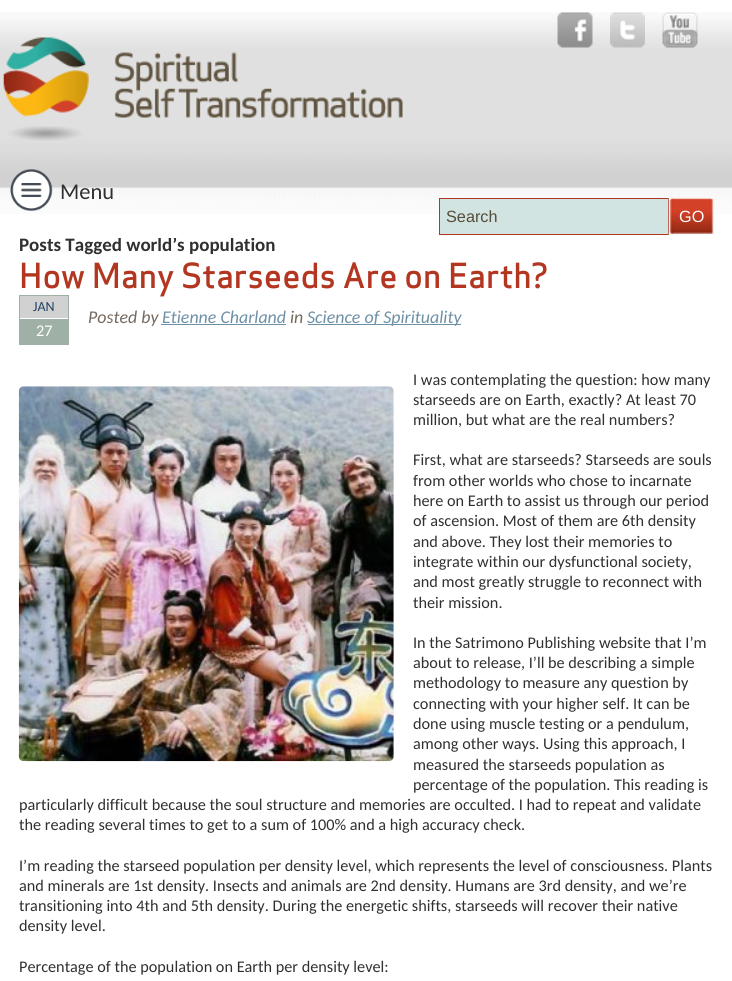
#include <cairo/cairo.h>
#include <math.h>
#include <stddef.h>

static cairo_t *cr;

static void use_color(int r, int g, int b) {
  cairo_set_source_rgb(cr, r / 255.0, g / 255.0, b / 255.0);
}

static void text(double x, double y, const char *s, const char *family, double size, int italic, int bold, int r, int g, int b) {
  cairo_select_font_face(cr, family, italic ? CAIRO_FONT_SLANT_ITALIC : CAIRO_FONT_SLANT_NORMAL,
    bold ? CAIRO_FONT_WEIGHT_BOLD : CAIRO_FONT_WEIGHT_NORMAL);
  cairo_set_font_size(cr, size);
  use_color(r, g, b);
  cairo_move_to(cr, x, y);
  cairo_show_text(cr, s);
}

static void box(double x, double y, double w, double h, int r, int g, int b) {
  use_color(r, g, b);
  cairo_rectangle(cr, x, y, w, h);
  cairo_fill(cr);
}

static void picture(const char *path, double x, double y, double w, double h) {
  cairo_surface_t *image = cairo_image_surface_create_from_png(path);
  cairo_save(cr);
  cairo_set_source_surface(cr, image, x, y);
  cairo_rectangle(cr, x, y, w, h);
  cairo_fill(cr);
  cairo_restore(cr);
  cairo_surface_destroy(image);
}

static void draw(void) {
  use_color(255, 255, 255);
  cairo_paint(cr);
  picture("img_01.png", 0, 12, 732, 202);
  picture("img_02.png", 3, 37, 400, 104);
  picture("img_03.png", 557, 12, 36, 36);
  picture("img_04.png", 610, 12, 35, 36);
  picture("img_05.png", 662, 12, 36, 36);
  picture("img_06.png", 10, 169, 43, 42);
  box(440, 198, 274, 37, 210, 228, 226);
  cairo_rectangle(cr, 439.5, 198.5, 229, 36);
  use_color(178, 54, 32);
  cairo_set_line_width(cr, 1);
  cairo_stroke(cr);
  picture("img_07.png", 668, 197, 46, 38);
  box(161, 324, 125, 1, 110, 144, 166);
  box(308, 324, 153, 1, 110, 144, 166);
  picture("img_08.png", 18, 386, 376, 376);
  text(60, 199, "Menu", "Carlito", 22.5, 0, 0, 48, 48, 48);
  text(446, 222, "Search", "Liberation Sans", 16.25, 0, 0, 85, 76, 58);
  text(679, 222, "GO", "Liberation Sans", 16.25, 0, 0, 255, 255, 255);
  cairo_save(cr);
  cairo_rectangle(cr, 19, 238, 695, 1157);
  cairo_clip(cr);
  text(19, 251, "Posts Tagged world’s population", "Carlito", 19, 0, 1, 48, 48, 48);
  cairo_restore(cr);
  text(19, 288, "How Many Starseeds Are on Earth?", "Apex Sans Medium", 33.75, 0, 0, 178, 54, 32);
  box(19, 295, 50, 50, 159, 176, 166);
  box(20, 296, 48, 22, 210, 209, 209);
  box(20, 318, 48, 1, 255, 255, 255);
  text(33, 311, "JAN", "Carlito", 14, 0, 0, 32, 66, 99);
  text(36, 336, "27", "Carlito", 16.25, 0, 0, 255, 255, 255);
  text(88, 323, "Posted by", "Carlito", 17.9, 1, 0, 117, 105, 94);
  text(162, 323, "Etienne Charland", "Carlito", 17.9, 1, 0, 110, 144, 166);
  text(290, 323, "in", "Carlito", 17.9, 1, 0, 117, 105, 94);
  text(307, 323, "Science of Spirituality", "Carlito", 17.9, 1, 0, 110, 144, 166);
  text(413, 385, "I was contemplating the question: how many", "Carlito", 16.25, 0, 0, 48, 48, 48);
  text(413, 405, "starseeds are on Earth, exactly? At least 70", "Carlito", 16.25, 0, 0, 48, 48, 48);
  text(413, 425, "million, but what are the real numbers?", "Carlito", 16.25, 0, 0, 48, 48, 48);
  text(413, 465, "First, what are starseeds? Starseeds are souls", "Carlito", 16.25, 0, 0, 48, 48, 48);
  text(413, 486, "from other worlds who chose to incarnate", "Carlito", 16.25, 0, 0, 48, 48, 48);
  text(413, 506, "here on Earth to assist us through our period", "Carlito", 16.25, 0, 0, 48, 48, 48);
  text(413, 526, "of ascension. Most of them are 6th density", "Carlito", 16.25, 0, 0, 48, 48, 48);
  text(413, 547, "and above. They lost their memories to", "Carlito", 16.25, 0, 0, 48, 48, 48);
  text(413, 567, "integrate within our dysfunctional society,", "Carlito", 16.25, 0, 0, 48, 48, 48);
  text(413, 587, "and most greatly struggle to reconnect with", "Carlito", 16.25, 0, 0, 48, 48, 48);
  text(413, 608, "their mission.", "Carlito", 16.25, 0, 0, 48, 48, 48);
  text(413, 648, "In the Satrimono Publishing website that I’m", "Carlito", 16.25, 0, 0, 48, 48, 48);
  text(413, 668, "about to release, I’ll be describing a simple", "Carlito", 16.25, 0, 0, 48, 48, 48);
  text(413, 688, "methodology to measure any question by", "Carlito", 16.25, 0, 0, 48, 48, 48);
  text(413, 709, "connecting with your higher self. It can be", "Carlito", 16.25, 0, 0, 48, 48, 48);
  text(413, 729, "done using muscle testing or a pendulum,", "Carlito", 16.25, 0, 0, 48, 48, 48);
  text(413, 749, "among other ways. Using this approach, I", "Carlito", 16.25, 0, 0, 48, 48, 48);
  text(413, 770, "measured the starseeds population as", "Carlito", 16.25, 0, 0, 48, 48, 48);
  text(413, 790, "percentage of the population. This reading is", "Carlito", 16.25, 0, 0, 48, 48, 48);
  text(19, 810, "particularly difficult because the soul structure and memories are occulted. I had to repeat and validate", "Carlito", 16.25, 0, 0, 48, 48, 48);
  text(19, 830, "the reading several times to get to a sum of 100% and a high accuracy check.", "Carlito", 16.25, 0, 0, 48, 48, 48);
  text(19, 871, "I’m reading the starseed population per density level, which represents the level of consciousness. Plants", "Carlito", 16.25, 0, 0, 48, 48, 48);
  text(19, 891, "and minerals are 1st density. Insects and animals are 2nd density. Humans are 3rd density, and we’re", "Carlito", 16.25, 0, 0, 48, 48, 48);
  text(19, 911, "transitioning into 4th and 5th density. During the energetic shifts, starseeds will recover their native", "Carlito", 16.25, 0, 0, 48, 48, 48);
  text(19, 931, "density level.", "Carlito", 16.25, 0, 0, 48, 48, 48);
  text(19, 972, "Percentage of the population on Earth per density level:", "Carlito", 16.25, 0, 0, 48, 48, 48);
}

int main(void) {
  cairo_surface_t *surface = cairo_image_surface_create(CAIRO_FORMAT_RGB24, 732, 981);
  cr = cairo_create(surface);
  cairo_font_options_t *options = cairo_font_options_create();
  cairo_font_options_set_hint_metrics(options, CAIRO_HINT_METRICS_OFF);
  cairo_font_options_set_hint_style(options, CAIRO_HINT_STYLE_NONE);
  cairo_set_font_options(cr, options);
  cairo_set_miter_limit(cr, 4);
  draw();
  cairo_surface_write_to_png(surface, "out.png");
  cairo_font_options_destroy(options);
  cairo_destroy(cr);
  cairo_surface_destroy(surface);
  return 0;
}
